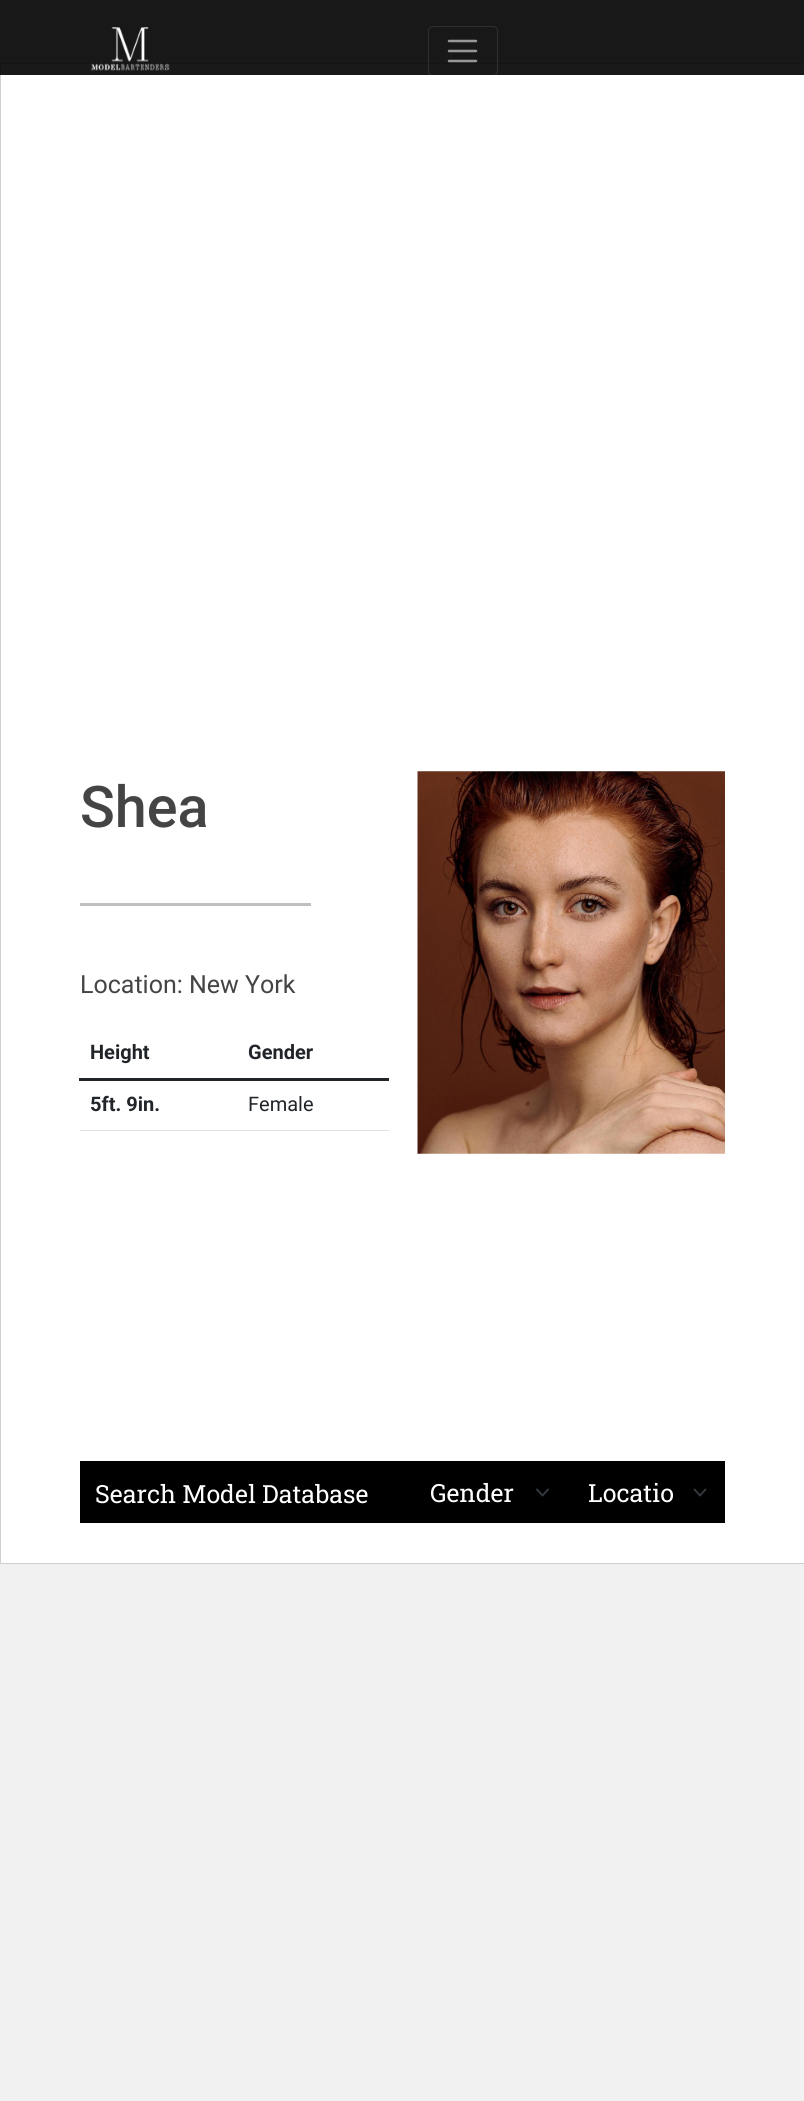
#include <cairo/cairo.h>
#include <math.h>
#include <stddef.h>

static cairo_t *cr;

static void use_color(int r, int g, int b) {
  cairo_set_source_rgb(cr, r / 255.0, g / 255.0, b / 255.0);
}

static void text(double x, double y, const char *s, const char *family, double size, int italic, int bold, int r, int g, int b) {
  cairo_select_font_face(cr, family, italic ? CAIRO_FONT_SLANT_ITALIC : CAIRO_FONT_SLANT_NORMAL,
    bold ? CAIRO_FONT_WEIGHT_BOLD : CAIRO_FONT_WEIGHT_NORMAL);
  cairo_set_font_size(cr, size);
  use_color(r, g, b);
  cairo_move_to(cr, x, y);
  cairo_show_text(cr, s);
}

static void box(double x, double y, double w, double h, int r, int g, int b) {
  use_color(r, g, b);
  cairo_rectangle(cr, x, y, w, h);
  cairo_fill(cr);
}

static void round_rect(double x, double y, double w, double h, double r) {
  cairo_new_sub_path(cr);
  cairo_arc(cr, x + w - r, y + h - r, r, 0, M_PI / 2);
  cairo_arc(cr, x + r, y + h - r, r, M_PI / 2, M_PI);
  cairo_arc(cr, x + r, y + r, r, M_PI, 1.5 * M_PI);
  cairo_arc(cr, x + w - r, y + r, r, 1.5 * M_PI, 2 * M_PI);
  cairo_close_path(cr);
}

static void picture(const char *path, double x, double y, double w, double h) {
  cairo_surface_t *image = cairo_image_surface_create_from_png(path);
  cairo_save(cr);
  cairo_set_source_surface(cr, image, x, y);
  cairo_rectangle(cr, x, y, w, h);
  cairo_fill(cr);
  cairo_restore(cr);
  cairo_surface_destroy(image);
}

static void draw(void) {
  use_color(241, 241, 241);
  cairo_paint(cr);
  use_color(255, 255, 255);
  cairo_rectangle(cr, 0.5, 63.5, 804, 1500);
  cairo_fill_preserve(cr);
  use_color(204, 208, 212);
  cairo_set_line_width(cr, 1);
  cairo_stroke(cr);
  cairo_set_source_rgba(cr, 0, 0, 0, 0.9);
  cairo_rectangle(cr, 0, 0, 804, 75);
  cairo_fill(cr);
  picture("img_01.png", 91, 27, 79, 44);
  round_rect(428.5, 26.5, 69, 49, 4.5);
  cairo_set_source_rgba(cr, 1, 1, 1, 0.1);
  cairo_stroke(cr);
  cairo_new_path(cr);
  cairo_move_to(cr, 449, 41);
  cairo_line_to(cr, 476, 41);
  cairo_move_to(cr, 449, 51);
  cairo_line_to(cr, 476, 51);
  cairo_move_to(cr, 449, 61);
  cairo_line_to(cr, 476, 61);
  use_color(151, 151, 151);
  cairo_set_line_width(cr, 2.5);
  cairo_set_line_cap(cr, CAIRO_LINE_CAP_ROUND);
  cairo_stroke(cr);
  box(80, 903, 231, 3, 191, 191, 191);
  box(79, 1078, 310, 3, 33, 37, 41);
  box(80, 1130, 309, 1, 222, 226, 230);
  picture("img_02.png", 417, 771, 308, 383);
  box(80, 1461, 645, 62, 0, 0, 0);
  cairo_new_path(cr);
  cairo_move_to(cr, 537, 1489.5);
  cairo_line_to(cr, 542.5, 1495.5);
  cairo_line_to(cr, 548, 1489.5);
  use_color(52, 58, 64);
  cairo_set_line_width(cr, 1.9);
  cairo_set_line_join(cr, CAIRO_LINE_JOIN_ROUND);
  cairo_stroke(cr);
  cairo_new_path(cr);
  cairo_move_to(cr, 694.5, 1489.5);
  cairo_line_to(cr, 700, 1495.5);
  cairo_line_to(cr, 705.5, 1489.5);
  cairo_stroke(cr);
  text(80, 827, "Shea", "Roboto Medium", 57.5, 0, 0, 68, 68, 68);
  text(80, 993, "Location: New York", "Roboto", 25, 0, 0, 68, 68, 68);
  text(90, 1059, "Height", "Roboto", 20, 0, 1, 33, 37, 41);
  text(248, 1059, "Gender", "Roboto", 20, 0, 1, 33, 37, 41);
  text(90, 1111, "5ft. 9in.", "Roboto", 20, 0, 1, 33, 37, 41);
  text(248, 1111, "Female", "Roboto", 20, 0, 0, 33, 37, 41);
  text(95, 1503, "Search Model Database", "Roboto Slab", 25, 0, 0, 255, 255, 255);
  text(430, 1502, "Gender", "Roboto Slab", 25, 0, 0, 255, 255, 255);
  text(588, 1502, "Locatio", "Roboto Slab", 25, 0, 0, 255, 255, 255);
}

int main(void) {
  cairo_surface_t *surface = cairo_image_surface_create(CAIRO_FORMAT_RGB24, 804, 2101);
  cr = cairo_create(surface);
  cairo_font_options_t *options = cairo_font_options_create();
  cairo_font_options_set_hint_metrics(options, CAIRO_HINT_METRICS_OFF);
  cairo_font_options_set_hint_style(options, CAIRO_HINT_STYLE_NONE);
  cairo_set_font_options(cr, options);
  cairo_set_miter_limit(cr, 4);
  draw();
  cairo_surface_write_to_png(surface, "out.png");
  cairo_font_options_destroy(options);
  cairo_destroy(cr);
  cairo_surface_destroy(surface);
  return 0;
}
